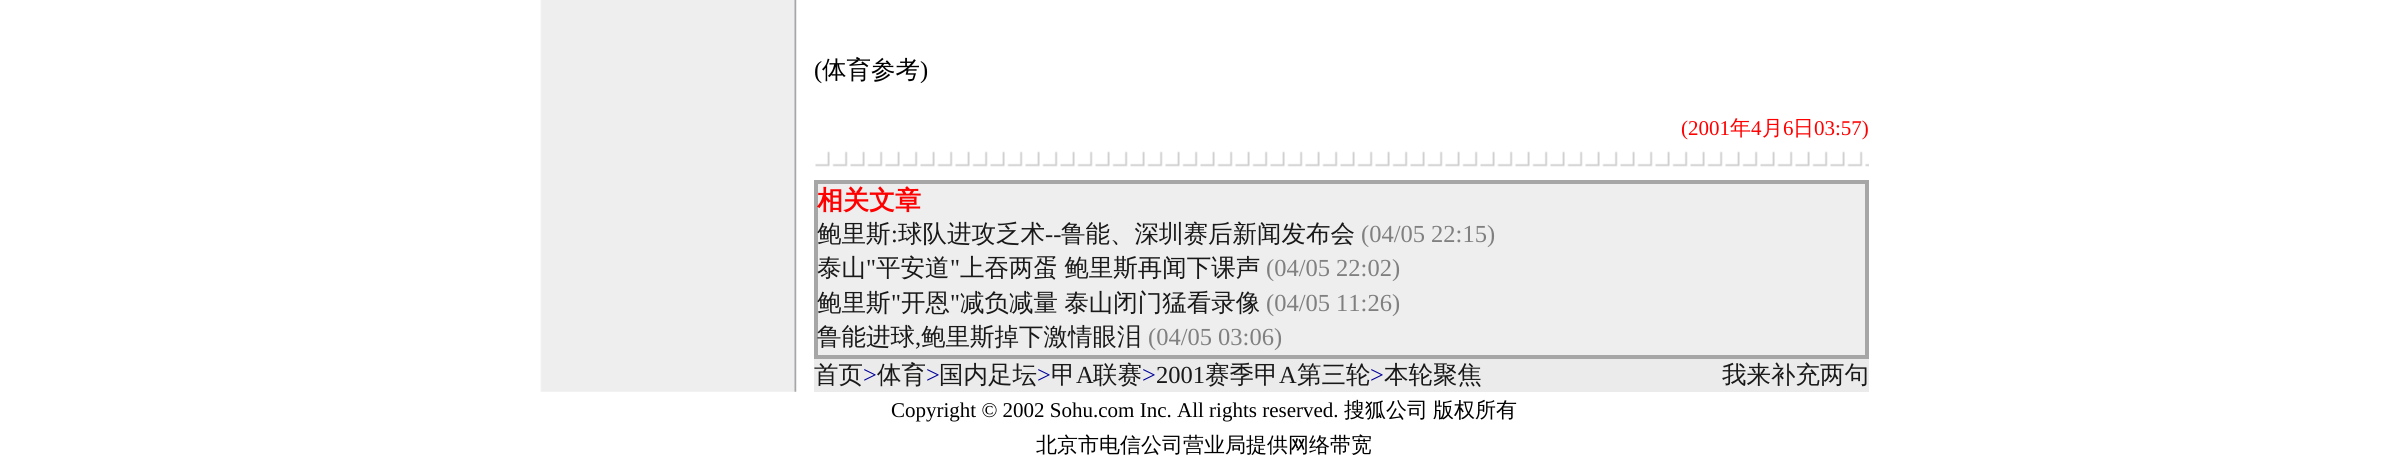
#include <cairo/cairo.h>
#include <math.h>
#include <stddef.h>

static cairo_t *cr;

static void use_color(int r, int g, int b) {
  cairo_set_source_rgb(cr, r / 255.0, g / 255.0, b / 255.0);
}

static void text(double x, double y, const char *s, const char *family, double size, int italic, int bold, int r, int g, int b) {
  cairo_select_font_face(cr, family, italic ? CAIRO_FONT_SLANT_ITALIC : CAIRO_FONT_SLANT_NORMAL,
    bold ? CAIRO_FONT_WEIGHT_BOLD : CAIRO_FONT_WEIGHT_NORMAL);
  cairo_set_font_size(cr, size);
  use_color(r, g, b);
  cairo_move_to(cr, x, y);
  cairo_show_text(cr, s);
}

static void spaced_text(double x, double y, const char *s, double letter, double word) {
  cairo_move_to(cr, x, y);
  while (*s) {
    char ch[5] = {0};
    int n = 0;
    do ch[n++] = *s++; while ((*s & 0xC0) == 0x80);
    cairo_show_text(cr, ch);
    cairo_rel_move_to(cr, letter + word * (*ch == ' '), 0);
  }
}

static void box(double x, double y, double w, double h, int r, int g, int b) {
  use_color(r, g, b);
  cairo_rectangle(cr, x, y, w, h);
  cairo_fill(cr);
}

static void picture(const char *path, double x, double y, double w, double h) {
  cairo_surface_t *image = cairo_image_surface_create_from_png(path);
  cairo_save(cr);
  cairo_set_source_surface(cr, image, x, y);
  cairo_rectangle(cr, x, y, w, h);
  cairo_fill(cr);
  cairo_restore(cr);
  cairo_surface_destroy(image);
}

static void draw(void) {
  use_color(255, 255, 255);
  cairo_paint(cr);
  picture("img_01.png", 540, 0, 257, 392);
  picture("img_02.png", 815, 151, 1054, 16);
  cairo_rectangle(cr, 815, 181, 1053, 177);
  use_color(166, 166, 166);
  cairo_stroke(cr);
  use_color(238, 238, 238);
  cairo_rectangle(cr, 817, 183, 1049, 173);
  cairo_fill_preserve(cr);
  use_color(166, 166, 166);
  cairo_stroke(cr);
  box(814, 359, 1055, 33, 235, 235, 235);
  text(814, 78, "(", "Liberation Serif", 24.5, 0, 0, 0, 0, 0);
  text(822, 78, "体育参考", "WenQuanYi Zen Hei Medium", 24.5, 0, 0, 0, 0, 0);
  text(920, 78, ")", "Liberation Serif", 24.5, 0, 0, 0, 0, 0);
  text(1681, 135, "(2001", "Liberation Serif", 21, 0, 0, 255, 0, 0);
  text(1730, 135, "年", "WenQuanYi Zen Hei Medium", 21, 0, 0, 255, 0, 0);
  text(1751, 135, "4", "Liberation Serif", 21, 0, 0, 255, 0, 0);
  text(1762, 135, "月", "WenQuanYi Zen Hei Medium", 21, 0, 0, 255, 0, 0);
  text(1783, 135, "6", "Liberation Serif", 21, 0, 0, 255, 0, 0);
  text(1793, 135, "日", "WenQuanYi Zen Hei Medium", 21, 0, 0, 255, 0, 0);
  text(1814, 135, "03:57)", "Liberation Serif", 21, 0, 0, 255, 0, 0);
  text(817, 209, "相关文章", "WenQuanYi Zen Hei", 26, 0, 1, 255, 0, 0);
  text(817, 242, "鲍里斯", "WenQuanYi Zen Hei Medium", 24.5, 0, 0, 25, 25, 25);
  text(891, 242, ":", "Liberation Serif", 24.5, 0, 0, 25, 25, 25);
  text(898, 242, "球队进攻乏术", "WenQuanYi Zen Hei Medium", 24.5, 0, 0, 25, 25, 25);
  text(1045, 242, "--", "Liberation Serif", 24.5, 0, 0, 25, 25, 25);
  text(1061, 242, "鲁能、深圳赛后新闻发布会", "WenQuanYi Zen Hei Medium", 24.5, 0, 0, 25, 25, 25);
  text(1361, 242, "(04/05 22:15)", "Liberation Serif", 24.5, 0, 0, 128, 128, 128);
  text(817, 276, "泰山", "WenQuanYi Zen Hei Medium", 24.5, 0, 0, 25, 25, 25);
  text(866, 276, "\"", "Liberation Serif", 24.5, 0, 0, 25, 25, 25);
  text(876, 276, "平安道", "WenQuanYi Zen Hei Medium", 24.5, 0, 0, 25, 25, 25);
  text(950, 276, "\"", "Liberation Serif", 24.5, 0, 0, 25, 25, 25);
  cairo_select_font_face(cr, "WenQuanYi Zen Hei Medium", CAIRO_FONT_SLANT_NORMAL, CAIRO_FONT_WEIGHT_NORMAL);
  spaced_text(960, 276, "上吞两蛋 鲍里斯再闻下课声", 0, -1);
  text(1266, 276, "(04/05 22:02)", "Liberation Serif", 24.5, 0, 0, 128, 128, 128);
  text(817, 311, "鲍里斯", "WenQuanYi Zen Hei Medium", 24.5, 0, 0, 25, 25, 25);
  text(891, 311, "\"", "Liberation Serif", 24.5, 0, 0, 25, 25, 25);
  text(901, 311, "开恩", "WenQuanYi Zen Hei Medium", 24.5, 0, 0, 25, 25, 25);
  text(950, 311, "\"", "Liberation Serif", 24.5, 0, 0, 25, 25, 25);
  cairo_select_font_face(cr, "WenQuanYi Zen Hei Medium", CAIRO_FONT_SLANT_NORMAL, CAIRO_FONT_WEIGHT_NORMAL);
  spaced_text(960, 311, "减负减量 泰山闭门猛看录像", 0, -1);
  text(1266, 311, "(04/05 11:26)", "Liberation Serif", 24.5, 0, 0, 128, 128, 128);
  text(817, 345, "鲁能进球", "WenQuanYi Zen Hei Medium", 24.5, 0, 0, 25, 25, 25);
  text(915, 345, ",", "Liberation Serif", 24.5, 0, 0, 25, 25, 25);
  text(921, 345, "鲍里斯掉下激情眼泪", "WenQuanYi Zen Hei Medium", 24.5, 0, 0, 25, 25, 25);
  text(1148, 345, "(04/05 03:06)", "Liberation Serif", 24.5, 0, 0, 128, 128, 128);
  text(814, 383, "首页", "WenQuanYi Zen Hei Medium", 24.5, 0, 0, 25, 25, 25);
  text(863, 383, ">", "Liberation Serif", 24.5, 0, 0, 0, 0, 153);
  text(877, 383, "体育", "WenQuanYi Zen Hei Medium", 24.5, 0, 0, 25, 25, 25);
  text(926, 383, ">", "Liberation Serif", 24.5, 0, 0, 0, 0, 153);
  text(939, 383, "国内足坛", "WenQuanYi Zen Hei Medium", 24.5, 0, 0, 25, 25, 25);
  text(1037, 383, ">", "Liberation Serif", 24.5, 0, 0, 0, 0, 153);
  text(1051, 383, "甲", "WenQuanYi Zen Hei Medium", 24.5, 0, 0, 25, 25, 25);
  text(1076, 383, "A", "Liberation Serif", 24.5, 0, 0, 25, 25, 25);
  text(1093, 383, "联赛", "WenQuanYi Zen Hei Medium", 24.5, 0, 0, 25, 25, 25);
  text(1142, 383, ">", "Liberation Serif", 24.5, 0, 0, 0, 0, 153);
  text(1156, 383, "2001", "Liberation Serif", 24.5, 0, 0, 25, 25, 25);
  text(1205, 383, "赛季甲", "WenQuanYi Zen Hei Medium", 24.5, 0, 0, 25, 25, 25);
  text(1279, 383, "A", "Liberation Serif", 24.5, 0, 0, 25, 25, 25);
  text(1297, 383, "第三轮", "WenQuanYi Zen Hei Medium", 24.5, 0, 0, 25, 25, 25);
  text(1370, 383, ">", "Liberation Serif", 24.5, 0, 0, 0, 0, 153);
  text(1384, 383, "本轮聚焦", "WenQuanYi Zen Hei Medium", 24.5, 0, 0, 25, 25, 25);
  text(1722, 383, "我来补充两句", "WenQuanYi Zen Hei Medium", 24.5, 0, 0, 25, 25, 25);
  text(891, 417, "Copyright © 2002 Sohu.com Inc. All rights reserved.", "Liberation Serif", 21, 0, 0, 0, 0, 0);
  text(1344, 417, "搜狐公司", "WenQuanYi Zen Hei Medium", 21, 0, 0, 0, 0, 0);
  text(1433, 417, "版权所有", "WenQuanYi Zen Hei Medium", 21, 0, 0, 0, 0, 0);
  text(1036, 452, "北京市电信公司营业局提供网络带宽", "WenQuanYi Zen Hei Medium", 21, 0, 0, 0, 0, 0);
}

int main(void) {
  cairo_surface_t *surface = cairo_image_surface_create(CAIRO_FORMAT_RGB24, 2408, 462);
  cr = cairo_create(surface);
  cairo_font_options_t *options = cairo_font_options_create();
  cairo_font_options_set_hint_metrics(options, CAIRO_HINT_METRICS_OFF);
  cairo_font_options_set_hint_style(options, CAIRO_HINT_STYLE_NONE);
  cairo_set_font_options(cr, options);
  cairo_set_miter_limit(cr, 4);
  draw();
  cairo_surface_write_to_png(surface, "out.png");
  cairo_font_options_destroy(options);
  cairo_destroy(cr);
  cairo_surface_destroy(surface);
  return 0;
}
